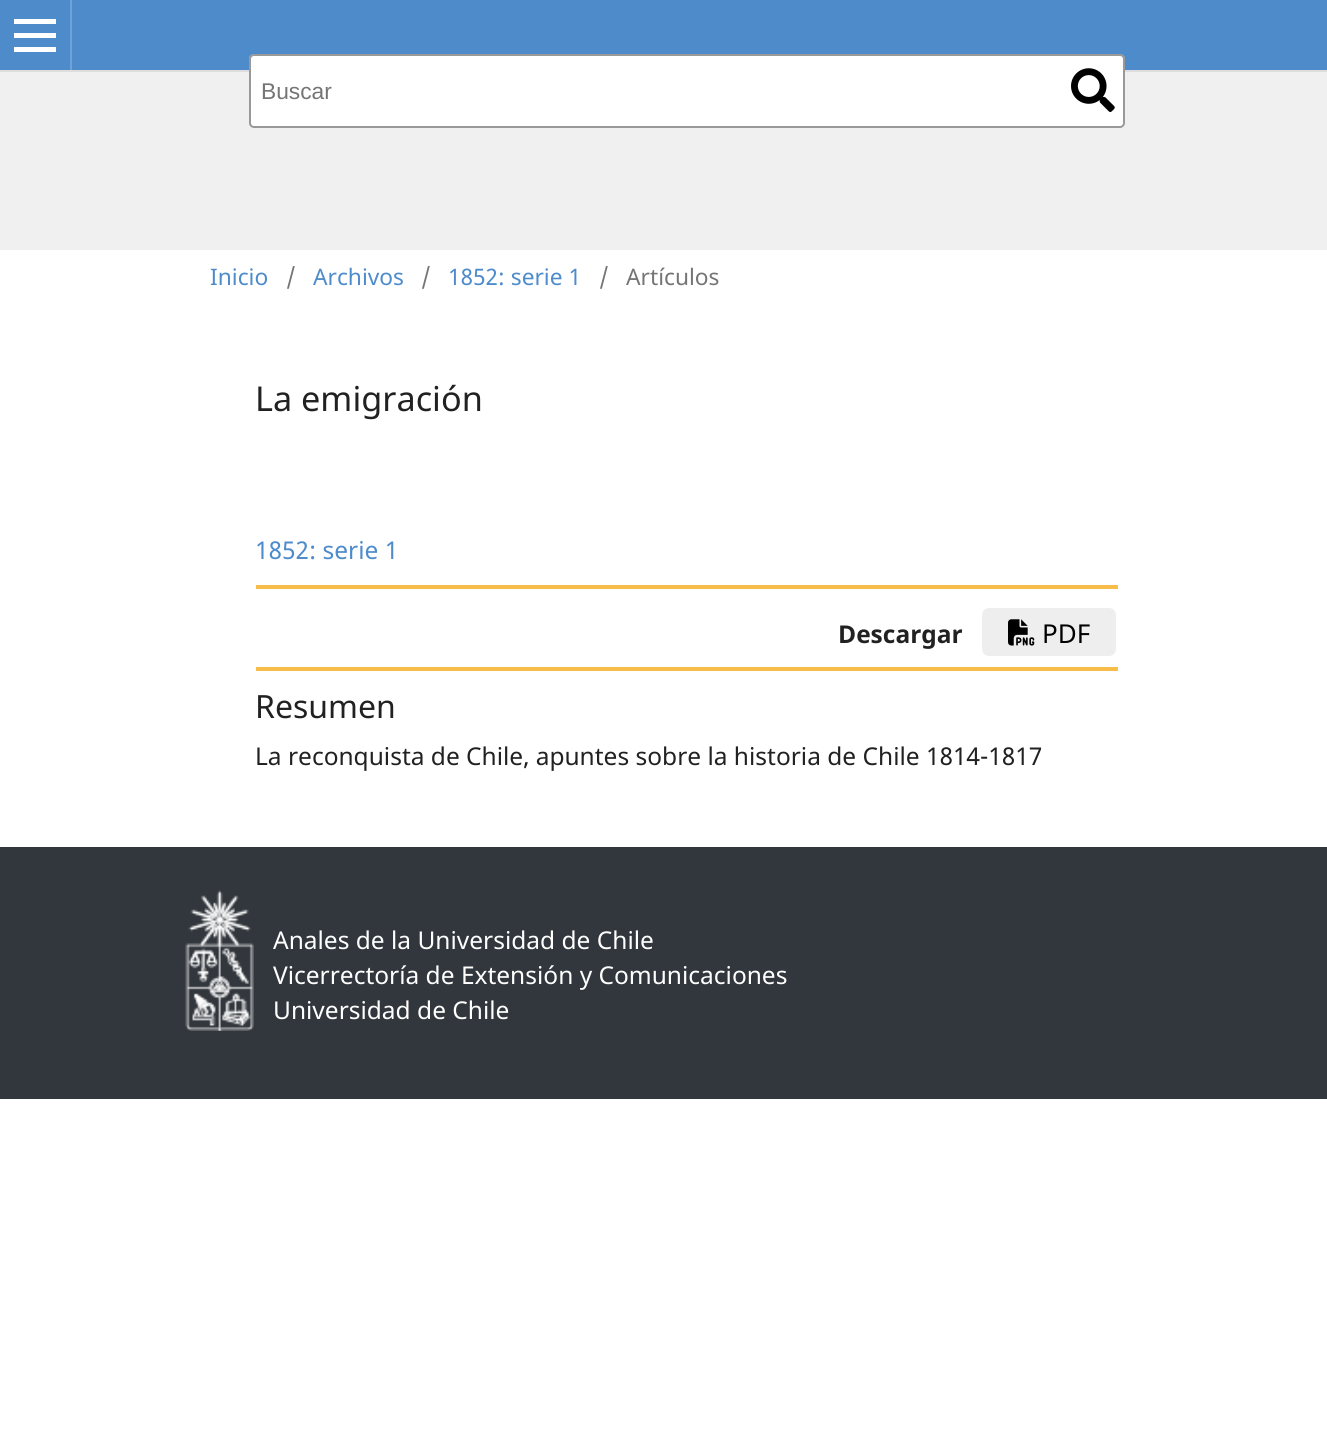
#include <cairo/cairo.h>
#include <math.h>
#include <stddef.h>

static cairo_t *cr;

static void use_color(int r, int g, int b) {
  cairo_set_source_rgb(cr, r / 255.0, g / 255.0, b / 255.0);
}

static void text(double x, double y, const char *s, const char *family, double size, int italic, int bold, int r, int g, int b) {
  cairo_select_font_face(cr, family, italic ? CAIRO_FONT_SLANT_ITALIC : CAIRO_FONT_SLANT_NORMAL,
    bold ? CAIRO_FONT_WEIGHT_BOLD : CAIRO_FONT_WEIGHT_NORMAL);
  cairo_set_font_size(cr, size);
  use_color(r, g, b);
  cairo_move_to(cr, x, y);
  cairo_show_text(cr, s);
}

static void box(double x, double y, double w, double h, int r, int g, int b) {
  use_color(r, g, b);
  cairo_rectangle(cr, x, y, w, h);
  cairo_fill(cr);
}

static void round_rect(double x, double y, double w, double h, double r) {
  cairo_new_sub_path(cr);
  cairo_arc(cr, x + w - r, y + h - r, r, 0, M_PI / 2);
  cairo_arc(cr, x + r, y + h - r, r, M_PI / 2, M_PI);
  cairo_arc(cr, x + r, y + r, r, M_PI, 1.5 * M_PI);
  cairo_arc(cr, x + w - r, y + r, r, 1.5 * M_PI, 2 * M_PI);
  cairo_close_path(cr);
}

static void picture(const char *path, double x, double y, double w, double h) {
  cairo_surface_t *image = cairo_image_surface_create_from_png(path);
  cairo_save(cr);
  cairo_set_source_surface(cr, image, x, y);
  cairo_rectangle(cr, x, y, w, h);
  cairo_fill(cr);
  cairo_restore(cr);
  cairo_surface_destroy(image);
}

static void draw(void) {
  use_color(255, 255, 255);
  cairo_paint(cr);
  box(0, 0, 1327, 70, 78, 139, 203);
  box(0, 70, 1327, 2, 221, 221, 221);
  box(70, 0, 2, 70, 113, 162, 213);
  box(14, 47, 42, 5, 255, 255, 255);
  box(14, 19, 42, 5, 255, 255, 255);
  box(14, 33, 42, 5, 255, 255, 255);
  box(0, 72, 1327, 178, 240, 240, 240);
  use_color(255, 255, 255);
  round_rect(249, 54, 876, 74, 5);
  cairo_fill(cr);
  round_rect(250, 55, 874, 72, 4);
  cairo_set_source_rgba(cr, 0, 0, 0, 0.4);
  cairo_stroke(cr);
  picture("img_01.png", 1071, 68, 44, 44);
  box(256, 585, 862, 4, 247, 188, 74);
  use_color(238, 238, 238);
  round_rect(981, 607, 136, 50, 8);
  cairo_fill_preserve(cr);
  use_color(255, 255, 255);
  cairo_stroke(cr);
  picture("img_02.png", 1008, 619, 27, 27);
  box(256, 667, 862, 4, 247, 188, 74);
  box(0, 847, 1327, 252, 50, 55, 61);
  picture("img_03.png", 185, 890, 69, 141);
  text(261, 99, "Buscar", "Liberation Sans", 22.75, 0, 0, 117, 117, 117);
  text(210, 285, "Inicio", "Noto Sans", 22.75, 0, 0, 77, 139, 203);
  text(286, 285, "/", "Noto Sans", 22.75, 0, 0, 117, 117, 117);
  text(313, 285, "Archivos", "Noto Sans", 22.75, 0, 0, 77, 139, 203);
  text(421, 285, "/", "Noto Sans", 22.75, 0, 0, 117, 117, 117);
  text(448, 285, "1852: serie 1", "Noto Sans", 22.75, 0, 0, 77, 139, 203);
  text(599, 285, "/", "Noto Sans", 22.75, 0, 0, 117, 117, 117);
  text(626, 285, "Artículos", "Noto Sans", 22.75, 0, 0, 117, 117, 117);
  text(255, 411, "La emigración", "Noto Sans", 34.25, 0, 0, 33, 33, 33);
  text(255, 559, "1852: serie 1", "Noto Sans", 24.5, 0, 0, 77, 139, 203);
  text(838, 643, "Descargar", "Noto Sans", 24.5, 0, 1, 33, 33, 33);
  text(1042, 643, "PDF", "Noto Sans", 26, 0, 0, 0, 0, 0);
  text(255, 718, "Resumen", "Noto Sans", 32, 0, 0, 33, 33, 33);
  text(255, 765, "La reconquista de Chile, apuntes sobre la historia de Chile 1814-1817", "Noto Sans", 24.5, 0, 0, 33, 33, 33);
  text(273, 949, "Anales de la Universidad de Chile", "Noto Sans", 24.5, 0, 0, 255, 255, 255);
  text(273, 984, "Vicerrectoría de Extensión y Comunicaciones", "Noto Sans", 24.5, 0, 0, 255, 255, 255);
  text(273, 1019, "Universidad de Chile", "Noto Sans", 24.5, 0, 0, 255, 255, 255);
}

int main(void) {
  cairo_surface_t *surface = cairo_image_surface_create(CAIRO_FORMAT_RGB24, 1327, 1444);
  cr = cairo_create(surface);
  cairo_font_options_t *options = cairo_font_options_create();
  cairo_font_options_set_hint_metrics(options, CAIRO_HINT_METRICS_OFF);
  cairo_font_options_set_hint_style(options, CAIRO_HINT_STYLE_NONE);
  cairo_set_font_options(cr, options);
  cairo_set_miter_limit(cr, 4);
  draw();
  cairo_surface_write_to_png(surface, "out.png");
  cairo_font_options_destroy(options);
  cairo_destroy(cr);
  cairo_surface_destroy(surface);
  return 0;
}
